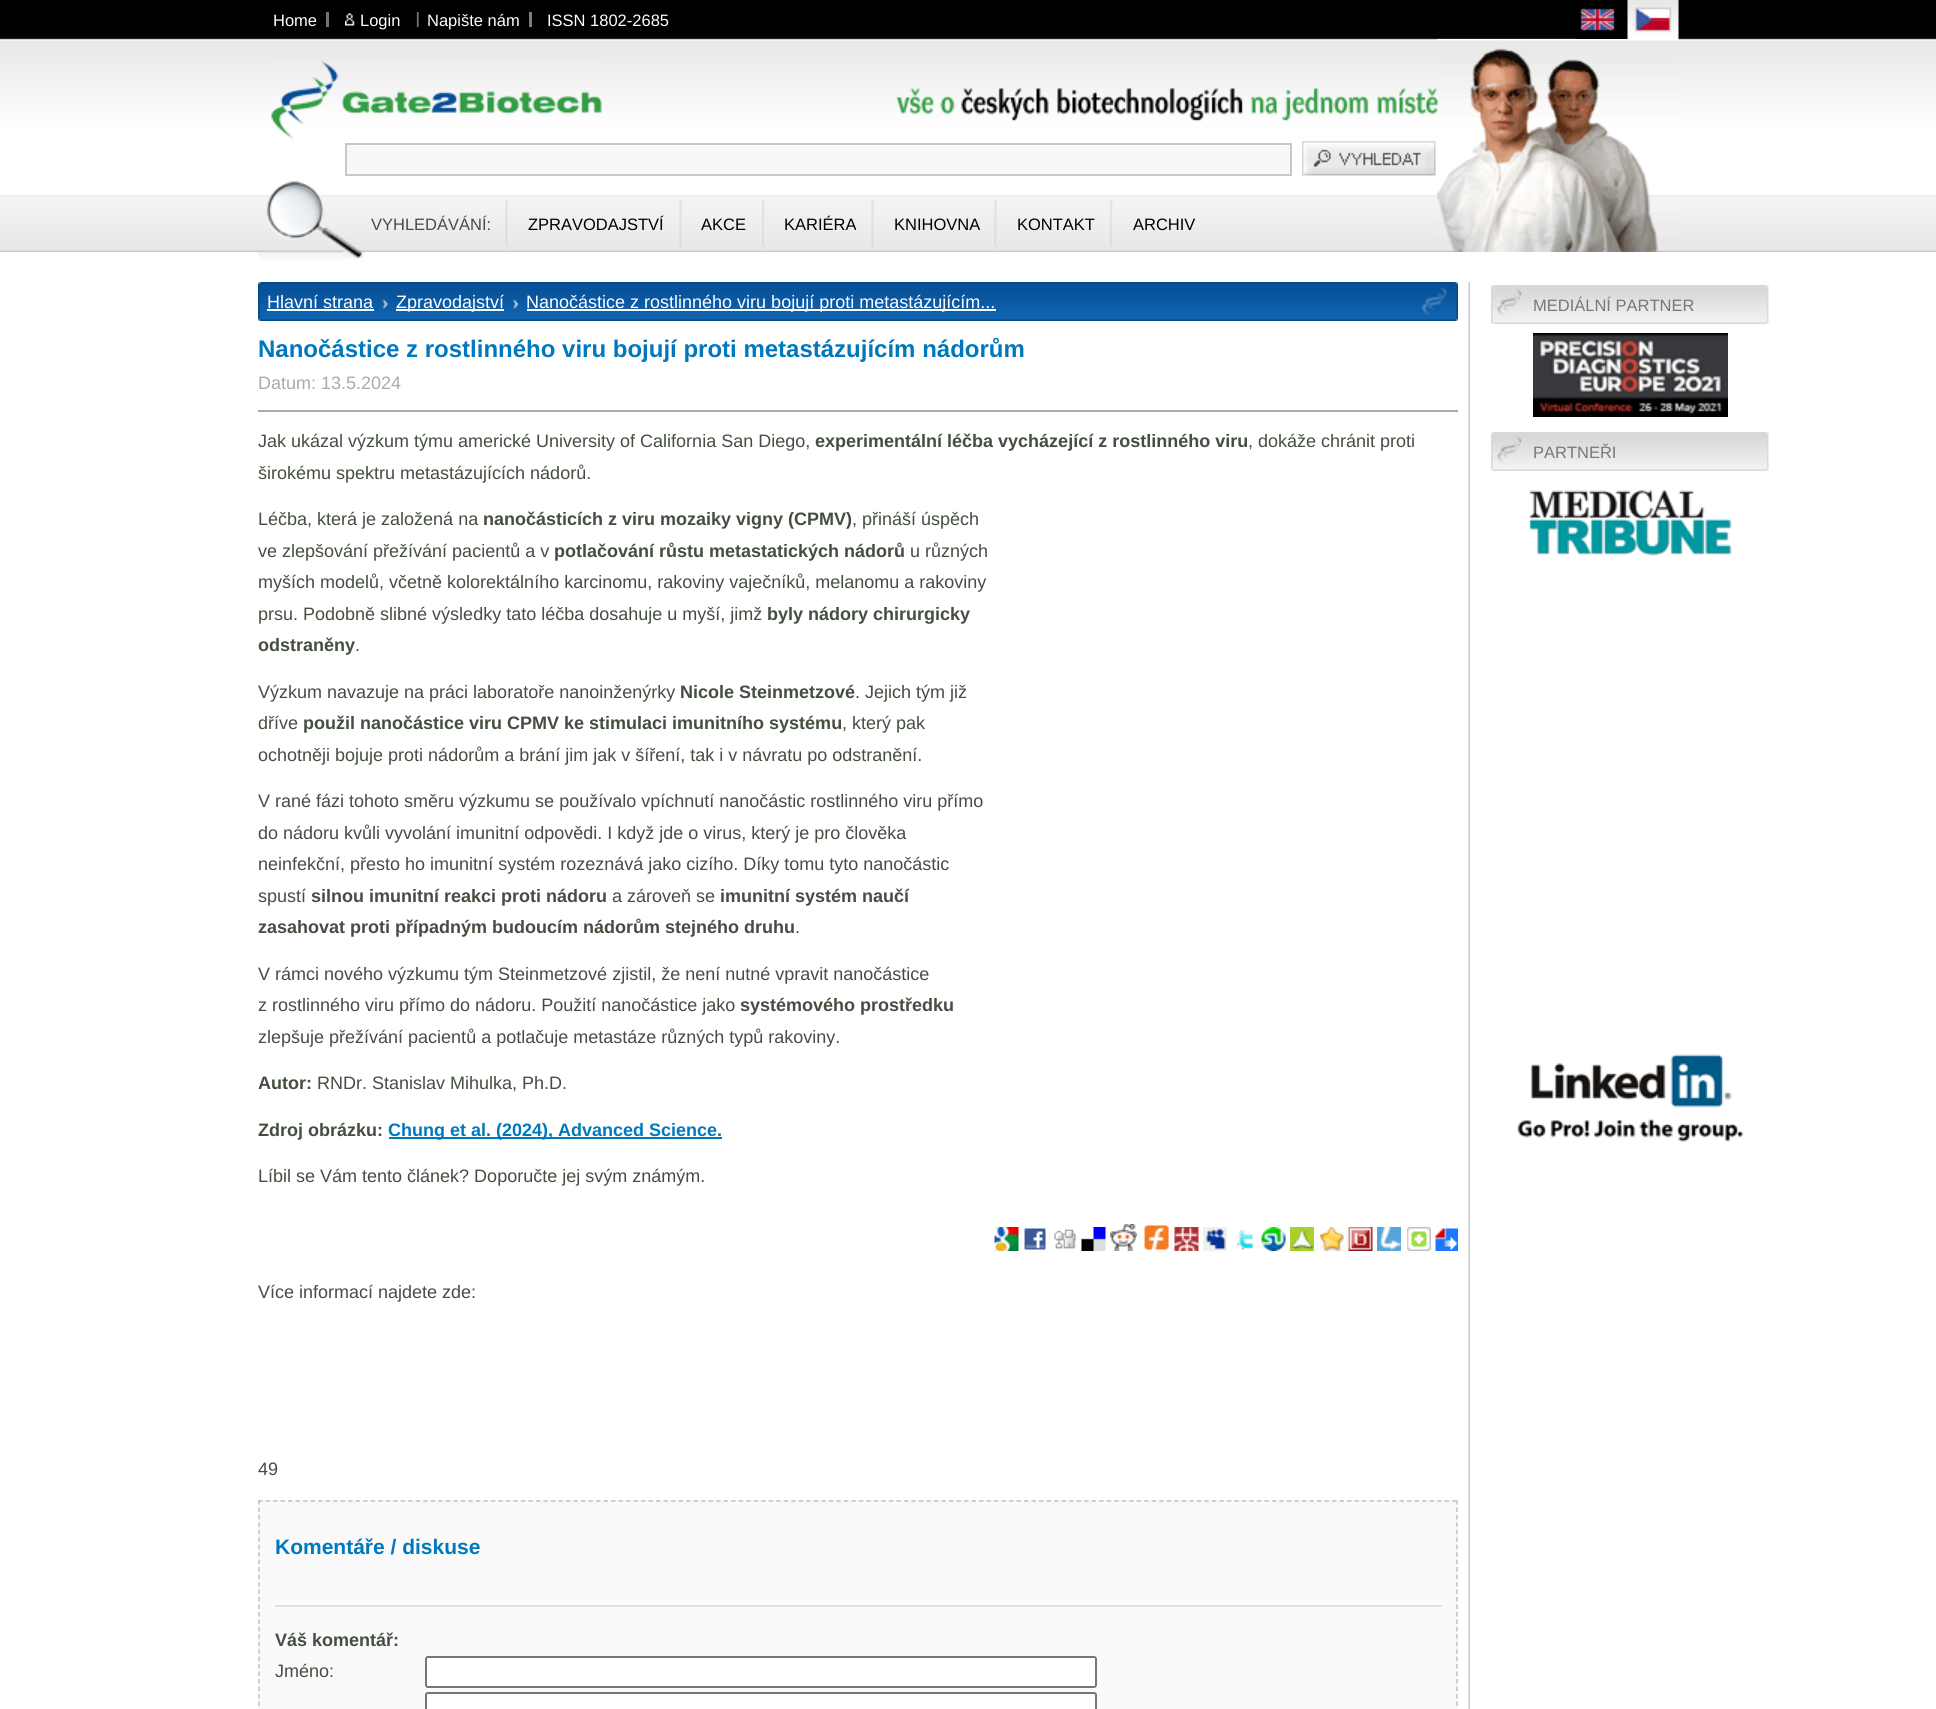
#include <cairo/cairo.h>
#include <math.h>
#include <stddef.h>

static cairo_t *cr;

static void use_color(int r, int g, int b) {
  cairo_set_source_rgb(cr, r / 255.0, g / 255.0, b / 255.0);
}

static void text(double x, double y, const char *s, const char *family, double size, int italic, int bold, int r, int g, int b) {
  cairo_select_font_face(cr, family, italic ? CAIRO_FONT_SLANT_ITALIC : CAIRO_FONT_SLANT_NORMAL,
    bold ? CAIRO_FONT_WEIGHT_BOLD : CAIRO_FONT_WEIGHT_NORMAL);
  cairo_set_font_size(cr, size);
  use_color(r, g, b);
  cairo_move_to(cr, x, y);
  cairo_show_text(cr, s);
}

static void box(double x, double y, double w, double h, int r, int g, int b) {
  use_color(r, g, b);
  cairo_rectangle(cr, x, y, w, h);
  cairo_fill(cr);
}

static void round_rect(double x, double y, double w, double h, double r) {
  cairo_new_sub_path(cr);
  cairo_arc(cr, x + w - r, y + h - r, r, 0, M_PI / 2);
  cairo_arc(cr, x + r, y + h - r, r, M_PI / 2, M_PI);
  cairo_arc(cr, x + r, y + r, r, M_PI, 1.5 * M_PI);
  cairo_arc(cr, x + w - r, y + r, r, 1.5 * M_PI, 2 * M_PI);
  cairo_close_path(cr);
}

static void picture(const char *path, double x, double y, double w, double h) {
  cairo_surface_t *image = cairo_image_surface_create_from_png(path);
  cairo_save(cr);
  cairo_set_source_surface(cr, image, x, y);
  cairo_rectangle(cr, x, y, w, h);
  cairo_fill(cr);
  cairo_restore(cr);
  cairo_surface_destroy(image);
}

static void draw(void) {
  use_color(255, 255, 255);
  cairo_paint(cr);
  picture("img_01.png", 0, 0, 1936, 252);
  box(326, 12, 3, 15, 116, 116, 116);
  picture("img_02.png", 345, 12, 74, 15);
  box(529, 12, 3, 15, 125, 125, 125);
  picture("img_03.png", 1576, 8, 52, 31);
  picture("img_04.png", 1627, 0, 52, 39);
  picture("img_05.png", 1437, 39, 242, 156);
  picture("img_06.png", 271, 61, 331, 79);
  picture("img_07.png", 896, 88, 543, 33);
  use_color(248, 248, 248);
  cairo_rectangle(cr, 346, 144, 945, 31);
  cairo_fill_preserve(cr);
  use_color(200, 200, 200);
  cairo_stroke(cr);
  picture("img_08.png", 1302, 141, 134, 35);
  picture("img_09.png", 1437, 195, 241, 57);
  picture("img_10.png", 258, 181, 107, 79);
  picture("img_11.png", 505, 199, 4, 52);
  picture("img_11.png", 679, 199, 4, 52);
  picture("img_12.png", 762, 199, 3, 52);
  picture("img_11.png", 871, 199, 4, 52);
  picture("img_11.png", 994, 199, 4, 52);
  picture("img_13.png", 1110, 199, 3, 52);
  picture("img_14.png", 1468, 282, 2, 1427);
  picture("img_15.png", 258, 282, 1200, 39);
  box(267, 309, 107, 2, 255, 255, 255);
  picture("img_16.png", 382, 299, 7, 11);
  box(396, 309, 108, 2, 255, 255, 255);
  picture("img_17.png", 512, 299, 7, 11);
  box(527, 309, 469, 2, 255, 255, 255);
  box(258, 410, 1200, 2, 170, 170, 170);
  box(389, 1137, 333, 2, 0, 120, 189);
  picture("img_18.png", 994, 1227, 25, 24);
  picture("img_19.png", 1024, 1228, 22, 22);
  picture("img_20.png", 1054, 1229, 22, 20);
  picture("img_21.png", 1081, 1227, 25, 24);
  picture("img_22.png", 1110, 1224, 27, 27);
  picture("img_23.png", 1144, 1225, 25, 25);
  picture("img_24.png", 1174, 1227, 25, 24);
  picture("img_25.png", 1203, 1227, 24, 24);
  picture("img_26.png", 1237, 1229, 16, 21);
  picture("img_27.png", 1261, 1227, 25, 24);
  picture("img_28.png", 1290, 1227, 24, 24);
  picture("img_29.png", 1320, 1227, 24, 24);
  picture("img_30.png", 1348, 1227, 25, 24);
  picture("img_31.png", 1377, 1227, 24, 24);
  picture("img_32.png", 1407, 1227, 24, 24);
  picture("img_33.png", 1435, 1228, 23, 23);
  box(258, 1500, 1200, 209, 250, 250, 250);
  cairo_new_path(cr);
  cairo_move_to(cr, 258, 1501);
  cairo_line_to(cr, 1458, 1501);
  use_color(192, 192, 192);
  cairo_set_line_width(cr, 1.5);
  cairo_set_dash(cr, (double[]){4.5, 3.01}, 2, 0);
  cairo_stroke(cr);
  cairo_new_path(cr);
  cairo_move_to(cr, 1457, 1500);
  cairo_line_to(cr, 1457, 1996.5);
  cairo_set_dash(cr, (double[]){4.5, 2.96}, 2, 0);
  cairo_stroke(cr);
  cairo_new_path(cr);
  cairo_move_to(cr, 259, 1500);
  cairo_line_to(cr, 259, 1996.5);
  cairo_stroke(cr);
  box(275, 1605, 1167, 2, 226, 226, 226);
  use_color(255, 255, 255);
  round_rect(426, 1657, 670, 30, 2);
  cairo_fill_preserve(cr);
  use_color(118, 118, 118);
  cairo_set_line_width(cr, 2);
  cairo_set_dash(cr, NULL, 0, 0);
  cairo_stroke(cr);
  use_color(255, 255, 255);
  round_rect(426, 1693, 670, 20, 2);
  cairo_fill_preserve(cr);
  use_color(118, 118, 118);
  cairo_stroke(cr);
  picture("img_34.png", 1491, 285, 278, 39);
  picture("img_35.png", 1533, 333, 195, 84);
  picture("img_34.png", 1491, 432, 278, 39);
  picture("img_36.png", 1529, 490, 203, 66);
  picture("img_37.png", 1517, 1054, 227, 88);
  text(273, 26, "Home", "Liberation Sans", 16.5, 0, 0, 255, 255, 255);
  text(427, 26, "Napište nám", "Liberation Sans", 16.5, 0, 0, 255, 255, 255);
  text(360, 26, "Login", "Liberation Sans", 16.5, 0, 0, 255, 255, 255);
  text(547, 26, "ISSN 1802-2685", "Liberation Sans", 16.5, 0, 0, 255, 255, 255);
  text(371, 230, "VYHLEDÁVÁNÍ:", "Liberation Sans", 16.5, 0, 0, 68, 78, 65);
  text(528, 230, "ZPRAVODAJSTVÍ", "Liberation Sans", 16.5, 0, 0, 0, 0, 0);
  text(701, 230, "AKCE", "Liberation Sans", 16.5, 0, 0, 0, 0, 0);
  text(784, 230, "KARIÉRA", "Liberation Sans", 16.5, 0, 0, 0, 0, 0);
  text(894, 230, "KNIHOVNA", "Liberation Sans", 16.5, 0, 0, 0, 0, 0);
  text(1017, 230, "KONTAKT", "Liberation Sans", 16.5, 0, 0, 0, 0, 0);
  text(1133, 230, "ARCHIV", "Liberation Sans", 16.5, 0, 0, 0, 0, 0);
  text(267, 308, "Hlavní strana", "Liberation Sans", 18, 0, 0, 255, 255, 255);
  text(396, 308, "Zpravodajství", "Liberation Sans", 18, 0, 0, 255, 255, 255);
  text(526, 308, "Nanočástice z rostlinného viru bojují proti metastázujícím...", "Liberation Sans", 18, 0, 0, 255, 255, 255);
  text(258, 357, "Nanočástice z rostlinného viru bojují proti metastázujícím nádorům", "Liberation Sans", 24, 0, 1, 0, 120, 189);
  text(258, 389, "Datum: 13.5.2024", "Liberation Sans", 18, 0, 0, 170, 170, 170);
  text(258, 447, "Jak ukázal výzkum týmu americké University of California San Diego,", "Liberation Sans", 18, 0, 0, 68, 78, 65);
  text(815, 447, "experimentální léčba vycházející z rostlinného viru", "Liberation Sans", 18, 0, 1, 68, 78, 65);
  text(1248, 447, ", dokáže chránit proti", "Liberation Sans", 18, 0, 0, 68, 78, 65);
  text(258, 479, "širokému spektru metastázujících nádorů.", "Liberation Sans", 18, 0, 0, 68, 78, 65);
  text(258, 525, "Léčba, která je založená na", "Liberation Sans", 18, 0, 0, 68, 78, 65);
  text(483, 525, "nanočásticích z viru mozaiky vigny (CPMV)", "Liberation Sans", 18, 0, 1, 68, 78, 65);
  text(852, 525, ", přináší úspěch", "Liberation Sans", 18, 0, 0, 68, 78, 65);
  text(258, 557, "ve zlepšování přežívání pacientů a v", "Liberation Sans", 18, 0, 0, 68, 78, 65);
  text(554, 557, "potlačování růstu metastatických nádorů", "Liberation Sans", 18, 0, 1, 68, 78, 65);
  text(910, 557, "u různých", "Liberation Sans", 18, 0, 0, 68, 78, 65);
  text(258, 588, "myších modelů, včetně kolorektálního karcinomu, rakoviny vaječníků, melanomu a rakoviny", "Liberation Sans", 18, 0, 0, 68, 78, 65);
  text(258, 620, "prsu. Podobně slibné výsledky tato léčba dosahuje u myší, jimž", "Liberation Sans", 18, 0, 0, 68, 78, 65);
  text(767, 620, "byly nádory chirurgicky", "Liberation Sans", 18, 0, 1, 68, 78, 65);
  text(258, 651, "odstraněny", "Liberation Sans", 18, 0, 1, 68, 78, 65);
  text(355, 651, ".", "Liberation Sans", 18, 0, 0, 68, 78, 65);
  text(258, 698, "Výzkum navazuje na práci laboratoře nanoinženýrky", "Liberation Sans", 18, 0, 0, 68, 78, 65);
  text(680, 698, "Nicole Steinmetzové", "Liberation Sans", 18, 0, 1, 68, 78, 65);
  text(855, 698, ". Jejich tým již", "Liberation Sans", 18, 0, 0, 68, 78, 65);
  text(258, 729, "dříve", "Liberation Sans", 18, 0, 0, 68, 78, 65);
  text(303, 729, "použil nanočástice viru CPMV ke stimulaci imunitního systému", "Liberation Sans", 18, 0, 1, 68, 78, 65);
  text(842, 729, ", který pak", "Liberation Sans", 18, 0, 0, 68, 78, 65);
  text(258, 761, "ochotněji bojuje proti nádorům a brání jim jak v šíření, tak i v návratu po odstranění.", "Liberation Sans", 18, 0, 0, 68, 78, 65);
  text(258, 807, "V rané fázi tohoto směru výzkumu se používalo vpíchnutí nanočástic rostlinného viru přímo", "Liberation Sans", 18, 0, 0, 68, 78, 65);
  text(258, 839, "do nádoru kvůli vyvolání imunitní odpovědi. I když jde o virus, který je pro člověka", "Liberation Sans", 18, 0, 0, 68, 78, 65);
  text(258, 870, "neinfekční, přesto ho imunitní systém rozeznává jako cizího. Díky tomu tyto nanočástic", "Liberation Sans", 18, 0, 0, 68, 78, 65);
  text(258, 902, "spustí", "Liberation Sans", 18, 0, 0, 68, 78, 65);
  text(311, 902, "silnou imunitní reakci proti nádoru", "Liberation Sans", 18, 0, 1, 68, 78, 65);
  text(612, 902, "a zároveň se", "Liberation Sans", 18, 0, 0, 68, 78, 65);
  text(720, 902, "imunitní systém naučí", "Liberation Sans", 18, 0, 1, 68, 78, 65);
  text(258, 933, "zasahovat proti případným budoucím nádorům stejného druhu", "Liberation Sans", 18, 0, 1, 68, 78, 65);
  text(795, 933, ".", "Liberation Sans", 18, 0, 0, 68, 78, 65);
  text(258, 980, "V rámci nového výzkumu tým Steinmetzové zjistil, že není nutné vpravit nanočástice", "Liberation Sans", 18, 0, 0, 68, 78, 65);
  text(258, 1011, "z rostlinného viru přímo do nádoru. Použití nanočástice jako", "Liberation Sans", 18, 0, 0, 68, 78, 65);
  text(740, 1011, "systémového prostředku", "Liberation Sans", 18, 0, 1, 68, 78, 65);
  text(258, 1043, "zlepšuje přežívání pacientů a potlačuje metastáze různých typů rakoviny.", "Liberation Sans", 18, 0, 0, 68, 78, 65);
  text(258, 1089, "Autor:", "Liberation Sans", 18, 0, 1, 68, 78, 65);
  text(317, 1089, "RNDr. Stanislav Mihulka, Ph.D.", "Liberation Sans", 18, 0, 0, 68, 78, 65);
  text(258, 1136, "Zdroj obrázku:", "Liberation Sans", 18, 0, 1, 68, 78, 65);
  text(388, 1136, "Chung et al. (2024), Advanced Science.", "Liberation Sans", 18, 0, 1, 0, 120, 189);
  text(258, 1182, "Líbil se Vám tento článek? Doporučte jej svým známým.", "Liberation Sans", 18, 0, 0, 68, 78, 65);
  text(258, 1298, "Více informací najdete zde:", "Liberation Sans", 18, 0, 0, 68, 78, 65);
  text(258, 1475, "49", "Liberation Sans", 18, 0, 0, 68, 78, 65);
  text(275, 1554, "Komentáře / diskuse", "Liberation Sans", 21, 0, 1, 0, 120, 189);
  text(275, 1646, "Váš komentář:", "Liberation Sans", 18, 0, 1, 68, 78, 65);
  text(275, 1677, "Jméno:", "Liberation Sans", 18, 0, 0, 68, 78, 65);
  text(1533, 311, "MEDIÁLNÍ PARTNER", "Liberation Sans", 16.5, 0, 0, 119, 119, 119);
  text(1533, 458, "PARTNEŘI", "Liberation Sans", 16.5, 0, 0, 119, 119, 119);
}

int main(void) {
  cairo_surface_t *surface = cairo_image_surface_create(CAIRO_FORMAT_RGB24, 1936, 1709);
  cr = cairo_create(surface);
  cairo_font_options_t *options = cairo_font_options_create();
  cairo_font_options_set_hint_metrics(options, CAIRO_HINT_METRICS_OFF);
  cairo_font_options_set_hint_style(options, CAIRO_HINT_STYLE_NONE);
  cairo_set_font_options(cr, options);
  cairo_set_miter_limit(cr, 4);
  draw();
  cairo_surface_write_to_png(surface, "out.png");
  cairo_font_options_destroy(options);
  cairo_destroy(cr);
  cairo_surface_destroy(surface);
  return 0;
}
